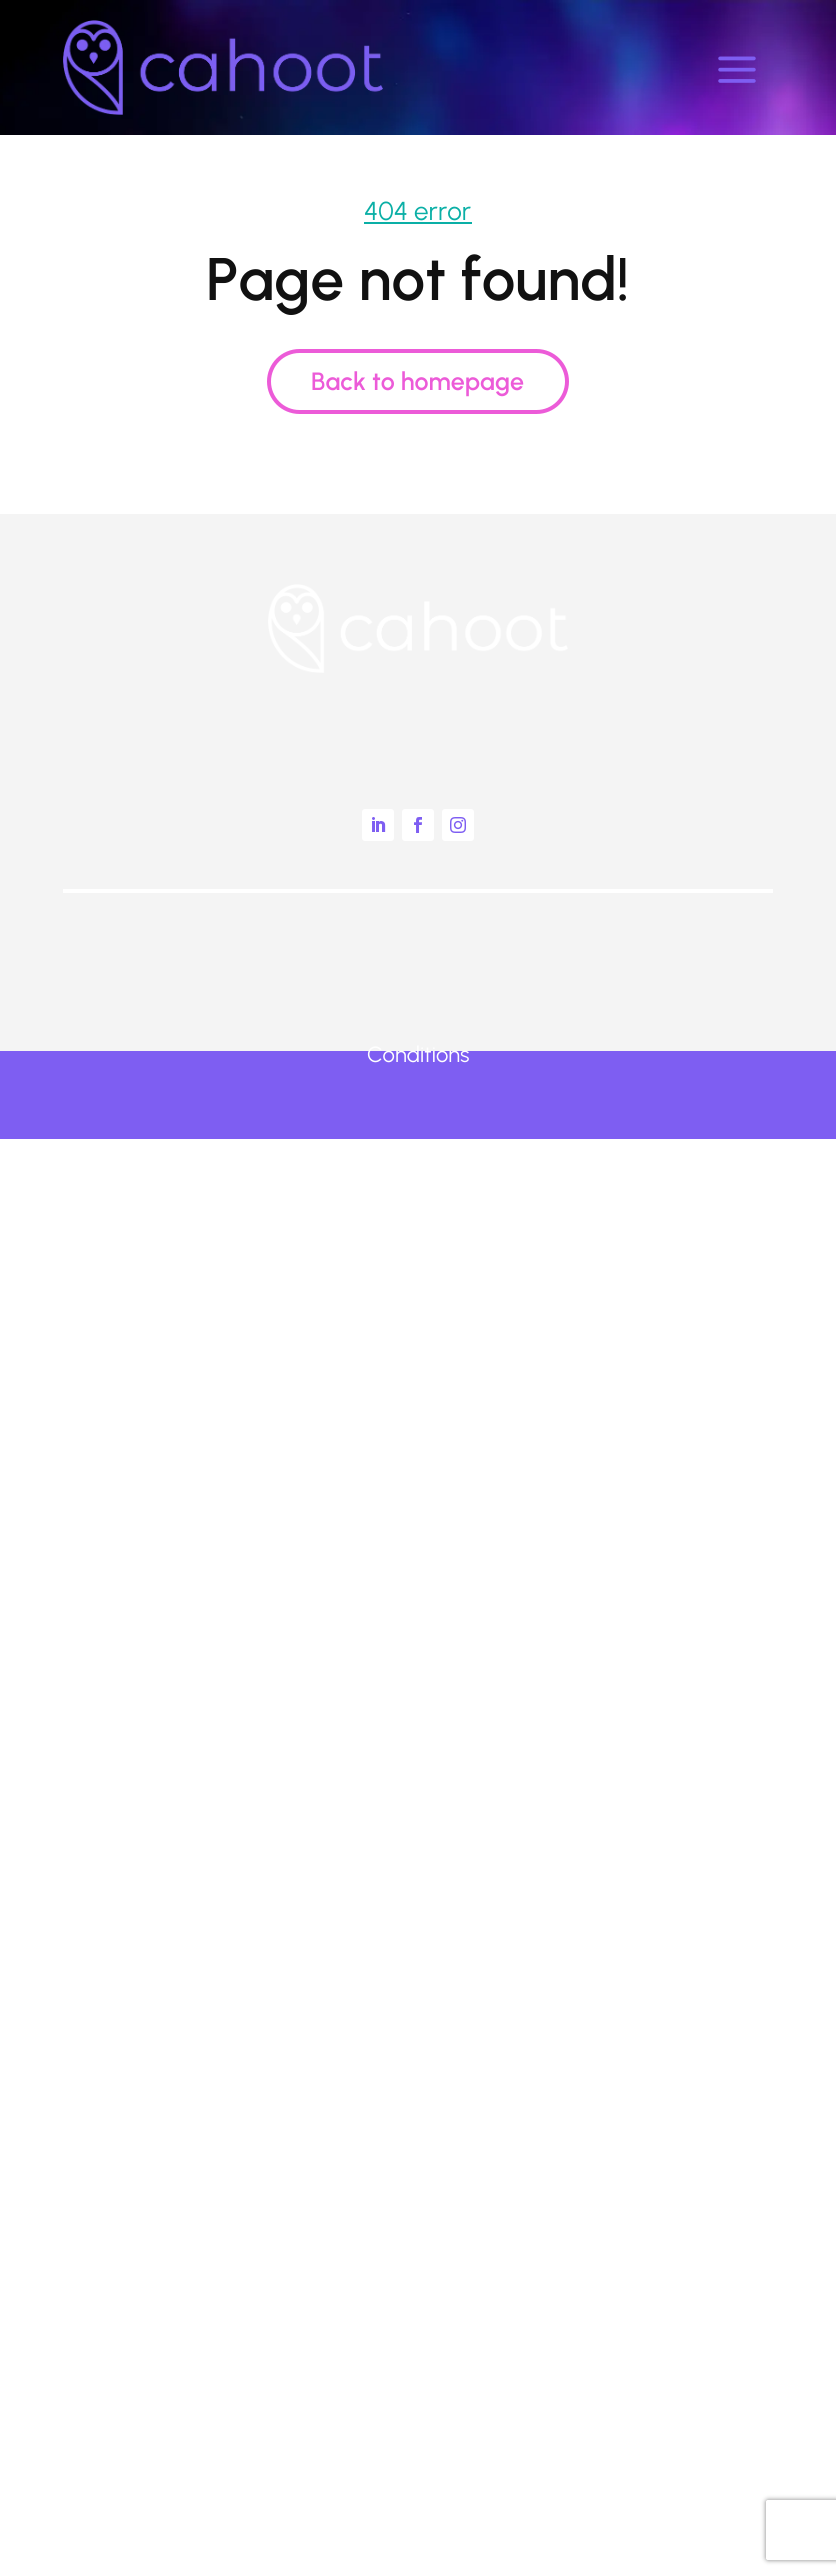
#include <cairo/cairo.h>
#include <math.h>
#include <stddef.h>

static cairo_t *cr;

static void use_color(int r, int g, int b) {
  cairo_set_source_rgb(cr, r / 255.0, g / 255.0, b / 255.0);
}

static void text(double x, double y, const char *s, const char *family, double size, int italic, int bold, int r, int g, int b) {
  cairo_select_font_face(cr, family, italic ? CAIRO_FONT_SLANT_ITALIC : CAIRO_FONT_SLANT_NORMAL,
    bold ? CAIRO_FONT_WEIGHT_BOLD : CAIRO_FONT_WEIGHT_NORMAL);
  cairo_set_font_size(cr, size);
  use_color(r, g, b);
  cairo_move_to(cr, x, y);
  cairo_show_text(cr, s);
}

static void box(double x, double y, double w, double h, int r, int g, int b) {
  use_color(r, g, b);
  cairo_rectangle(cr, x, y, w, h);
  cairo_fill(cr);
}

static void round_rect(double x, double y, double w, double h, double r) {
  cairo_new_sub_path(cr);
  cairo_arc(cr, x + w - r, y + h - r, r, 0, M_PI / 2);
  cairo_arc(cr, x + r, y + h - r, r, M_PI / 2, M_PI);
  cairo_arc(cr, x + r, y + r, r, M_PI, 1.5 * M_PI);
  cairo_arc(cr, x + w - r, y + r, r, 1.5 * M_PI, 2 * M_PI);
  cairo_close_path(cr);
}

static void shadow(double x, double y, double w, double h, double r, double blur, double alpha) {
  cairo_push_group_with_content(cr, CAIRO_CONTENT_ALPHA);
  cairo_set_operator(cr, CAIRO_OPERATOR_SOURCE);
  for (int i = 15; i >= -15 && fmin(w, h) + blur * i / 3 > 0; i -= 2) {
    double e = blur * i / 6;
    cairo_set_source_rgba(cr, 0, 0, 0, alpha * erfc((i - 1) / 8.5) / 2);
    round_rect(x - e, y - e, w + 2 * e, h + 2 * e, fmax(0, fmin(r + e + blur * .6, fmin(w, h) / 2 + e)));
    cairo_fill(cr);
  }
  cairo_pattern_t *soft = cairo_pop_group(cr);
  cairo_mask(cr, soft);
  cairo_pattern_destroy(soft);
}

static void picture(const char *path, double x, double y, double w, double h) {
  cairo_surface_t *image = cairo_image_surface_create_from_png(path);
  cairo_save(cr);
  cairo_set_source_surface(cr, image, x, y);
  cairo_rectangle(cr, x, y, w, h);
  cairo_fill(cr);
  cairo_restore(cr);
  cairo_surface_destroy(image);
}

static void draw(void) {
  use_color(255, 255, 255);
  cairo_paint(cr);
  picture("img_01.png", 0, 0, 836, 135);
  picture("img_02.png", 63, 20, 320, 95);
  picture("img_03.png", 718, 56, 38, 27);
  box(364, 222, 108, 2, 10, 175, 166);
  round_rect(269, 351, 298, 61, 30.5);
  use_color(236, 91, 216);
  cairo_set_line_width(cr, 4);
  cairo_stroke(cr);
  box(0, 1051, 836, 88, 126, 94, 242);
  cairo_save(cr);
  cairo_rectangle(cr, 0, 514, 836, 625);
  cairo_clip(cr);
  use_color(244, 244, 244);
  cairo_set_fill_rule(cr, CAIRO_FILL_RULE_EVEN_ODD);
  cairo_new_path(cr);
  cairo_move_to(cr, -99, 415);
  cairo_line_to(cr, 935, 415);
  cairo_line_to(cr, 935, 1238);
  cairo_line_to(cr, -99, 1238);
  cairo_close_path(cr);
  cairo_move_to(cr, 0, 1051);
  cairo_line_to(cr, 836, 1051);
  cairo_curve_to(cr, 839, 1051, 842, 1054, 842, 1057);
  cairo_line_to(cr, 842, 1682);
  cairo_curve_to(cr, 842, 1686, 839, 1688, 836, 1688);
  cairo_line_to(cr, 0, 1688);
  cairo_curve_to(cr, -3, 1688, -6, 1686, -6, 1682);
  cairo_line_to(cr, -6, 1057);
  cairo_curve_to(cr, -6, 1054, -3, 1051, 0, 1051);
  cairo_close_path(cr);
  cairo_fill(cr);
  cairo_restore(cr);
  box(63, 889, 710, 4, 255, 255, 255);
  picture("img_04.png", 268, 584, 300, 89);
  round_rect(362, 809, 32, 32, 3);
  cairo_fill(cr);
  picture("img_05.png", 372, 817, 14, 15);
  round_rect(402, 809, 32, 32, 3);
  cairo_fill(cr);
  picture("img_06.png", 414, 817, 8, 16);
  round_rect(442, 809, 32, 32, 3);
  cairo_fill(cr);
  picture("img_07.png", 450, 817, 16, 16);
  cairo_save(cr);
  cairo_set_fill_rule(cr, CAIRO_FILL_RULE_EVEN_ODD);
  cairo_new_path(cr);
  cairo_move_to(cr, 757, 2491);
  cairo_line_to(cr, 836, 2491);
  cairo_line_to(cr, 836, 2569);
  cairo_line_to(cr, 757, 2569);
  cairo_close_path(cr);
  cairo_move_to(cr, 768, 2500);
  cairo_line_to(cr, 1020, 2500);
  cairo_curve_to(cr, 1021, 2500, 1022, 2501, 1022, 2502);
  cairo_line_to(cr, 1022, 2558);
  cairo_curve_to(cr, 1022, 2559, 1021, 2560, 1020, 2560);
  cairo_line_to(cr, 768, 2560);
  cairo_curve_to(cr, 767, 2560, 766, 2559, 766, 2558);
  cairo_line_to(cr, 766, 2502);
  cairo_curve_to(cr, 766, 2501, 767, 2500, 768, 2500);
  cairo_close_path(cr);
  cairo_clip(cr);
  use_color(128, 128, 128);
  shadow(766, 2500, 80, 60, 2, 2.5, 1);
  cairo_restore(cr);
  text(364, 220, "404 error", "Urbanist", 26, 0, 0, 10, 175, 166);
  text(206, 300, "Page not found!", "Urbanist SemiBold", 60, 0, 0, 17, 17, 17);
  text(311, 390, "Back to homepage", "Urbanist SemiBold", 25, 0, 0, 236, 91, 216);
  text(367, 1062, "Conditions", "Urbanist", 22, 0, 0, 255, 255, 255);
}

int main(void) {
  cairo_surface_t *surface = cairo_image_surface_create(CAIRO_FORMAT_RGB24, 836, 2574);
  cr = cairo_create(surface);
  cairo_font_options_t *options = cairo_font_options_create();
  cairo_font_options_set_hint_metrics(options, CAIRO_HINT_METRICS_OFF);
  cairo_font_options_set_hint_style(options, CAIRO_HINT_STYLE_NONE);
  cairo_set_font_options(cr, options);
  cairo_set_miter_limit(cr, 4);
  draw();
  cairo_surface_write_to_png(surface, "out.png");
  cairo_font_options_destroy(options);
  cairo_destroy(cr);
  cairo_surface_destroy(surface);
  return 0;
}
